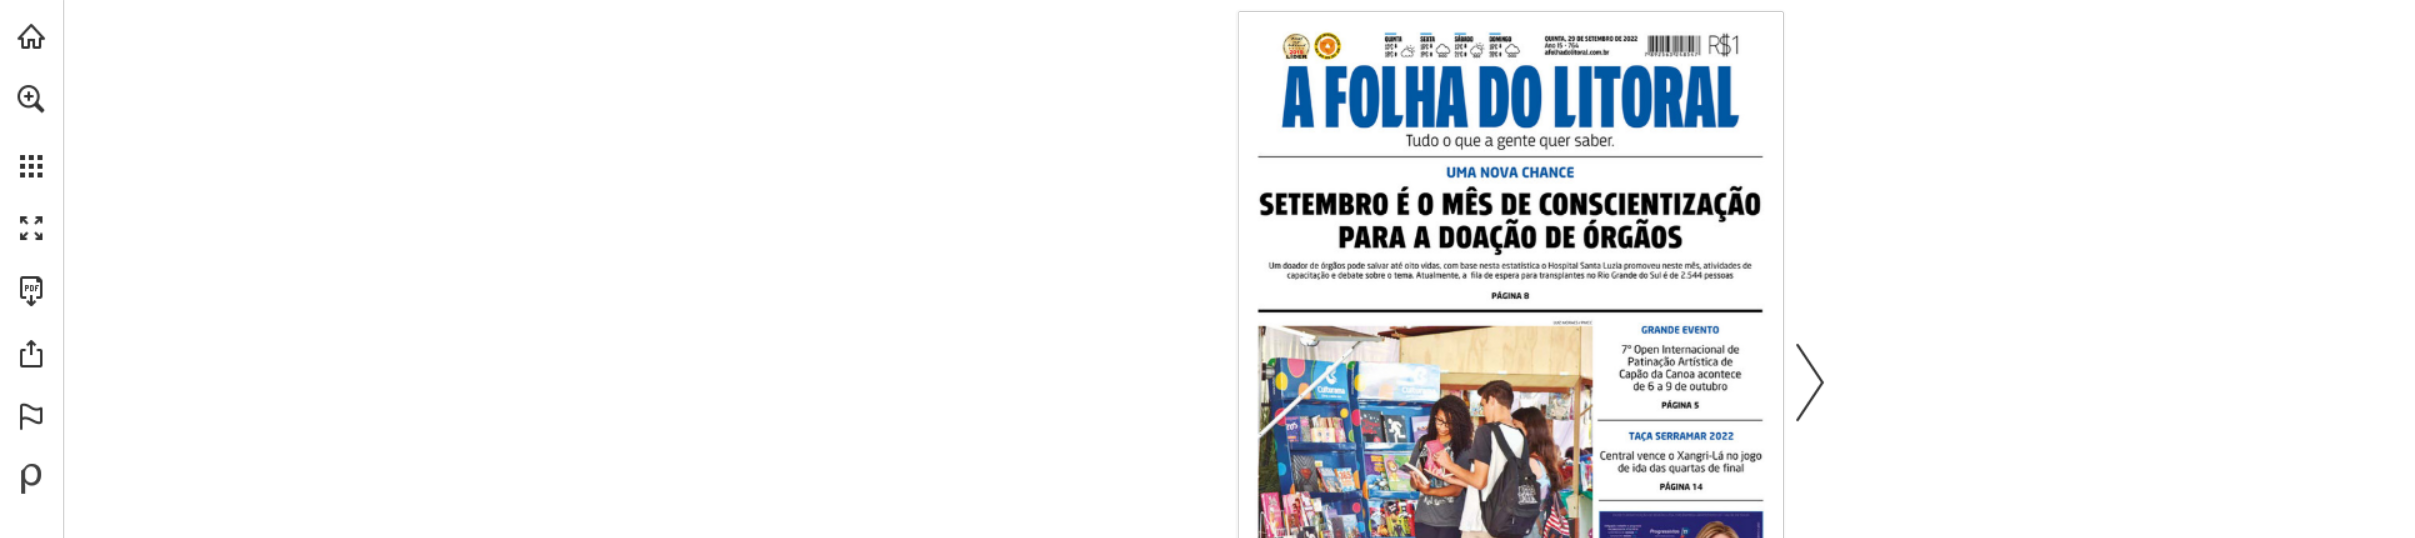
#include <cairo/cairo.h>
#include <math.h>
#include <stddef.h>

static cairo_t *cr;

static void use_color(int r, int g, int b) {
  cairo_set_source_rgb(cr, r / 255.0, g / 255.0, b / 255.0);
}

static void box(double x, double y, double w, double h, int r, int g, int b) {
  use_color(r, g, b);
  cairo_rectangle(cr, x, y, w, h);
  cairo_fill(cr);
}

static void round_rect(double x, double y, double w, double h, double r) {
  cairo_new_sub_path(cr);
  cairo_arc(cr, x + w - r, y + h - r, r, 0, M_PI / 2);
  cairo_arc(cr, x + r, y + h - r, r, M_PI / 2, M_PI);
  cairo_arc(cr, x + r, y + r, r, M_PI, 1.5 * M_PI);
  cairo_arc(cr, x + w - r, y + r, r, 1.5 * M_PI, 2 * M_PI);
  cairo_close_path(cr);
}

static void shadow(double x, double y, double w, double h, double r, double blur, double alpha) {
  cairo_push_group_with_content(cr, CAIRO_CONTENT_ALPHA);
  cairo_set_operator(cr, CAIRO_OPERATOR_SOURCE);
  for (int i = 15; i >= -15 && fmin(w, h) + blur * i / 3 > 0; i -= 2) {
    double e = blur * i / 6;
    cairo_set_source_rgba(cr, 0, 0, 0, alpha * erfc((i - 1) / 8.5) / 2);
    round_rect(x - e, y - e, w + 2 * e, h + 2 * e, fmax(0, fmin(r + e + blur * .6, fmin(w, h) / 2 + e)));
    cairo_fill(cr);
  }
  cairo_pattern_t *soft = cairo_pop_group(cr);
  cairo_mask(cr, soft);
  cairo_pattern_destroy(soft);
}

static void picture(const char *path, double x, double y, double w, double h) {
  cairo_surface_t *image = cairo_image_surface_create_from_png(path);
  cairo_save(cr);
  cairo_set_source_surface(cr, image, x, y);
  cairo_rectangle(cr, x, y, w, h);
  cairo_fill(cr);
  cairo_restore(cr);
  cairo_surface_destroy(image);
}

static void draw(void) {
  use_color(255, 255, 255);
  cairo_paint(cr);
  use_color(0, 0, 0);
  shadow(1, 0, 63, 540, 0, 0.5, 0.2);
  box(0, 0, 63, 538, 255, 255, 255);
  picture("img_01.png", 17, 23, 29, 26);
  picture("img_02.png", 17, 84, 29, 30);
  picture("img_03.png", 19, 154, 24, 24);
  picture("img_04.png", 19, 216, 24, 25);
  picture("img_05.png", 19, 276, 24, 31);
  picture("img_06.png", 19, 339, 24, 29);
  picture("img_07.png", 19, 402, 24, 29);
  picture("img_08.png", 21, 463, 21, 31);
  use_color(18, 18, 18);
  shadow(1236, 10, 549, 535, 4, 1, 0.05);
  use_color(255, 255, 255);
  round_rect(1238.5, 11.5, 545, 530, 2);
  cairo_fill_preserve(cr);
  use_color(204, 204, 204);
  cairo_set_line_width(cr, 1);
  cairo_stroke(cr);
  picture("img_09.png", 1238, 12, 532, 526);
  picture("img_10.png", 1796, 343, 29, 79);
}

int main(void) {
  cairo_surface_t *surface = cairo_image_surface_create(CAIRO_FORMAT_RGB24, 2415, 538);
  cr = cairo_create(surface);
  cairo_font_options_t *options = cairo_font_options_create();
  cairo_font_options_set_hint_metrics(options, CAIRO_HINT_METRICS_OFF);
  cairo_font_options_set_hint_style(options, CAIRO_HINT_STYLE_NONE);
  cairo_set_font_options(cr, options);
  cairo_set_miter_limit(cr, 4);
  draw();
  cairo_surface_write_to_png(surface, "out.png");
  cairo_font_options_destroy(options);
  cairo_destroy(cr);
  cairo_surface_destroy(surface);
  return 0;
}
